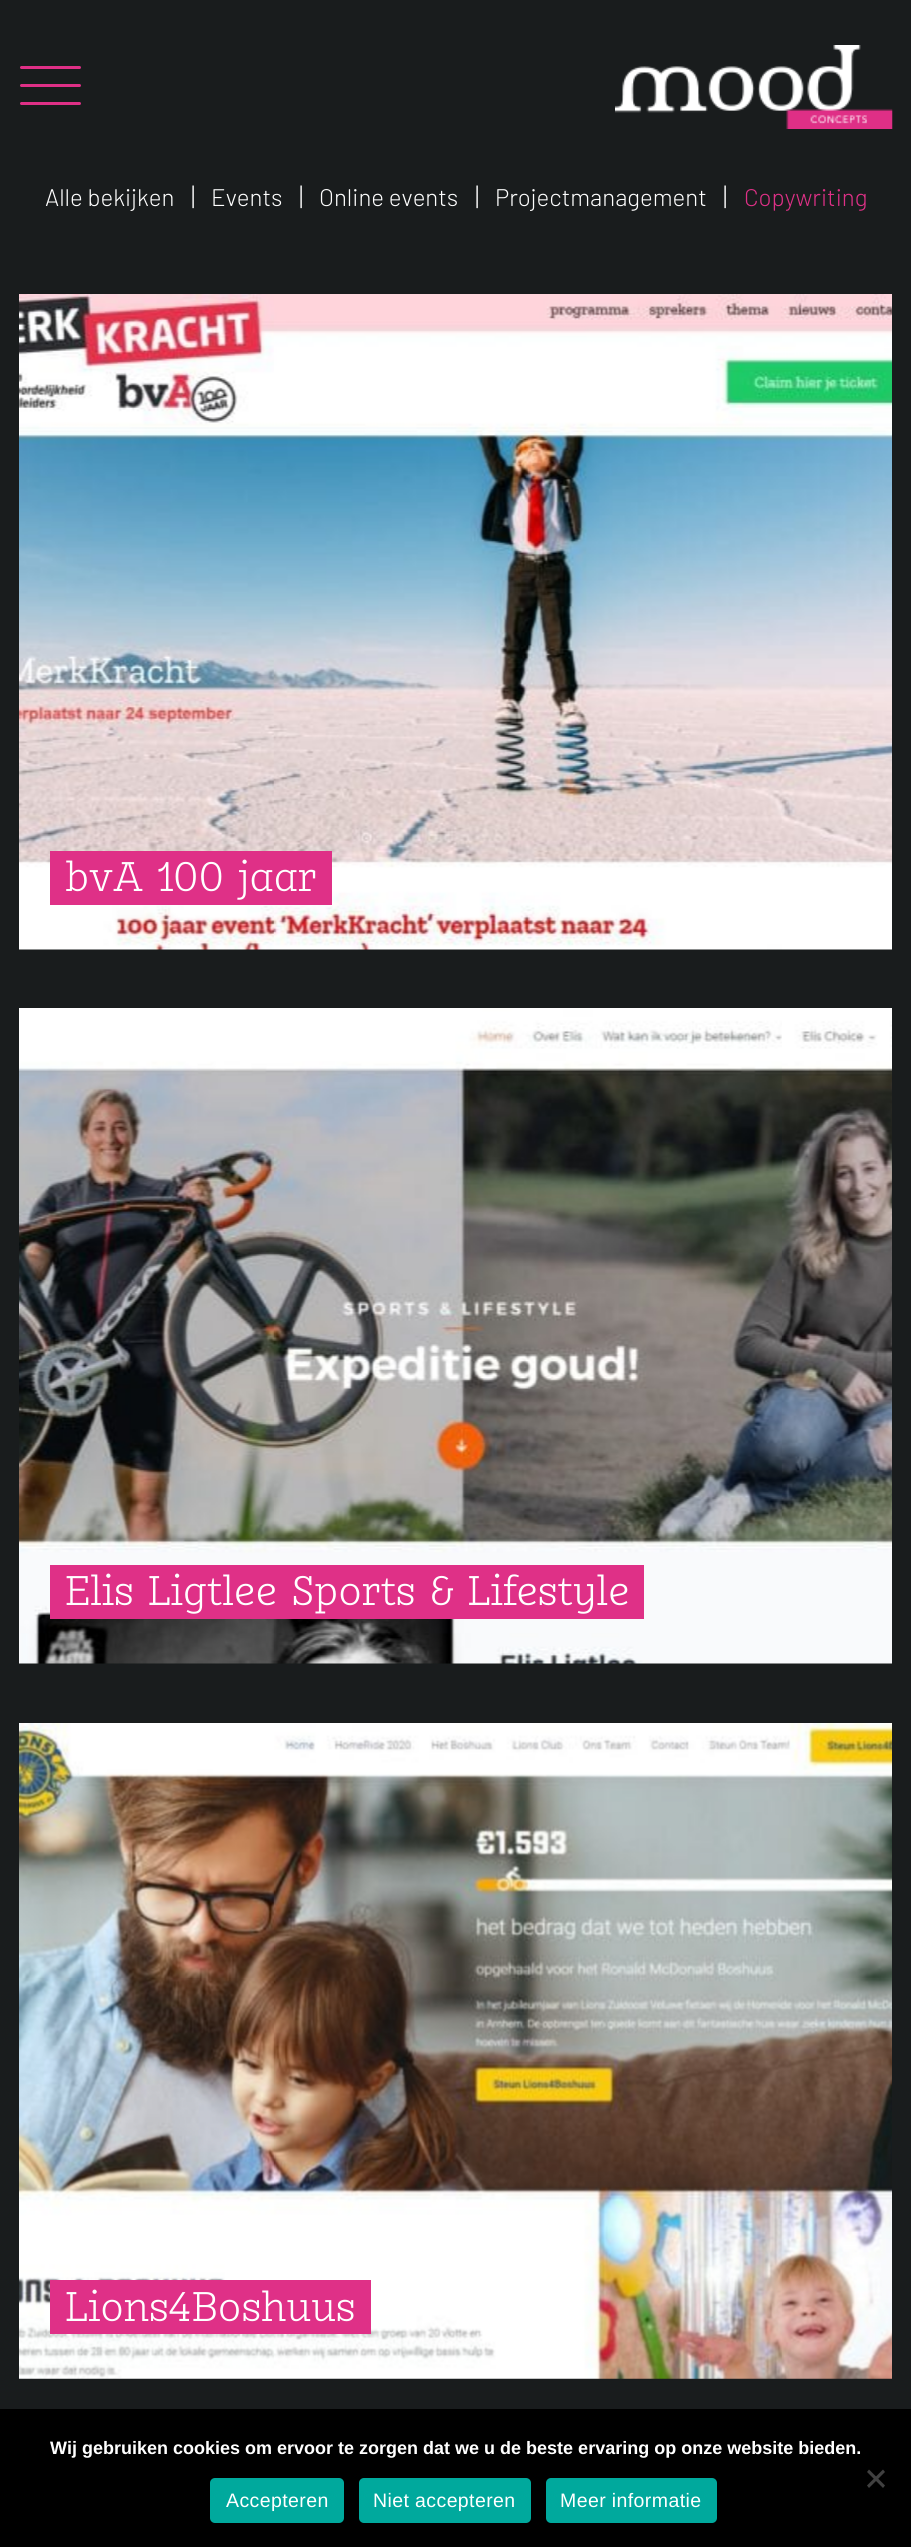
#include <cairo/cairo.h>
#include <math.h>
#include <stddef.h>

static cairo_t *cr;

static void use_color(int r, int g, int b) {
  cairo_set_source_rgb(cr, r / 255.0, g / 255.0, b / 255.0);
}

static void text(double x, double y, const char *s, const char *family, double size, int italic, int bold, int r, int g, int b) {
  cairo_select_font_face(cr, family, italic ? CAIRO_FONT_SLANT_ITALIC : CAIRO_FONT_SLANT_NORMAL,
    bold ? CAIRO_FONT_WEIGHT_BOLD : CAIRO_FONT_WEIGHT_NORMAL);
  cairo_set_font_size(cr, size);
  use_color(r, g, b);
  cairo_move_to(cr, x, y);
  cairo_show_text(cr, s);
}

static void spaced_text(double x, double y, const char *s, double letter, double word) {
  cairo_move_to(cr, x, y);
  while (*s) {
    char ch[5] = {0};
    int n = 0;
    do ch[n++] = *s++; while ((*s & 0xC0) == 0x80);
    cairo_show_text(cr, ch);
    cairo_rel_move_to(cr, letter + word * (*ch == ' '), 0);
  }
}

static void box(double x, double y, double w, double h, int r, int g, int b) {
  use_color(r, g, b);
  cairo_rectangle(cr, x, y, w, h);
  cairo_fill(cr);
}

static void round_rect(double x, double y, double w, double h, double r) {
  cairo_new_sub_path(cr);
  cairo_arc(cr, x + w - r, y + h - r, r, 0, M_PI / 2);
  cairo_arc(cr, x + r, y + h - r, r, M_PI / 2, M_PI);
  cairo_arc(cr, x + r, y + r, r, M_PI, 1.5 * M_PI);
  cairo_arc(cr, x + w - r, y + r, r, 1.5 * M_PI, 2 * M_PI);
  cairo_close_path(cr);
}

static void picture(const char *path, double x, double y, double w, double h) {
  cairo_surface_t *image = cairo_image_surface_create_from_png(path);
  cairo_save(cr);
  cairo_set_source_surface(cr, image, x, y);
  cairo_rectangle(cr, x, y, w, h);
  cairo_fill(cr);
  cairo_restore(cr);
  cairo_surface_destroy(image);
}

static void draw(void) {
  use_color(25, 28, 29);
  cairo_paint(cr);
  use_color(223, 48, 135);
  round_rect(20, 84, 61, 3, 1.5);
  cairo_fill(cr);
  round_rect(20, 66, 61, 3, 1.5);
  cairo_fill(cr);
  round_rect(20, 102, 61, 3, 1.5);
  cairo_fill(cr);
  picture("img_01.png", 615, 45, 278, 84);
  picture("img_02.png", 19, 294, 873, 656);
  box(50, 851, 282, 54, 223, 48, 135);
  picture("img_03.png", 19, 1008, 873, 656);
  box(50, 1565, 594, 54, 223, 48, 135);
  picture("img_04.png", 19, 1723, 873, 656);
  box(50, 2280, 321, 54, 223, 48, 135);
  box(0, 2409, 911, 138, 0, 0, 0);
  use_color(64, 64, 64);
  cairo_new_path(cr);
  cairo_move_to(cr, 883, 2469.5);
  cairo_line_to(cr, 885, 2472);
  cairo_line_to(cr, 869, 2488);
  cairo_line_to(cr, 867, 2485.5);
  cairo_close_path(cr);
  cairo_fill(cr);
  cairo_new_path(cr);
  cairo_move_to(cr, 867, 2472);
  cairo_line_to(cr, 869, 2469.5);
  cairo_line_to(cr, 885, 2485.5);
  cairo_line_to(cr, 883, 2488);
  cairo_close_path(cr);
  cairo_fill(cr);
  use_color(0, 169, 157);
  round_rect(210, 2478, 134, 45, 5);
  cairo_fill(cr);
  round_rect(359, 2478, 172, 45, 5);
  cairo_fill(cr);
  round_rect(546, 2478, 171, 45, 5);
  cairo_fill(cr);
  text(45, 206, "Alle bekijken", "Barlow Light", 24, 0, 0, 255, 255, 255);
  text(191, 206, "|", "Barlow Light", 27, 0, 0, 255, 255, 255);
  text(211, 206, "Events", "Barlow Light", 24, 0, 0, 255, 255, 255);
  text(299, 206, "|", "Barlow Light", 27, 0, 0, 255, 255, 255);
  text(319, 206, "Online events", "Barlow Light", 24, 0, 0, 255, 255, 255);
  text(475, 206, "|", "Barlow Light", 27, 0, 0, 255, 255, 255);
  text(495, 206, "Projectmanagement", "Barlow Light", 24, 0, 0, 255, 255, 255);
  text(723, 206, "|", "Barlow Light", 27, 0, 0, 255, 255, 255);
  text(744, 206, "Copywriting", "Barlow Light", 24, 0, 0, 223, 48, 135);
  text(65, 891, "bvA 100 jaar", "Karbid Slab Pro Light", 40.5, 0, 0, 255, 255, 255);
  text(65, 1605, "Elis Ligtlee Sports & Lifestyle", "Karbid Slab Pro Light", 40.5, 0, 0, 255, 255, 255);
  text(65, 2321, "Lions4Boshuus", "Karbid Slab Pro Light", 40.5, 0, 0, 255, 255, 255);
  text(50, 2454, "Wij gebruiken cookies om ervoor te zorgen dat we u de beste ervaring op onze website bieden.", "Liberation Sans", 18, 0, 1, 255, 255, 255);
  cairo_select_font_face(cr, "Liberation Sans", CAIRO_FONT_SLANT_NORMAL, CAIRO_FONT_WEIGHT_NORMAL);
  cairo_set_font_size(cr, 19.5);
  spaced_text(226, 2507, "Accepteren", 0.4, 0);
  spaced_text(373, 2507, "Niet accepteren", 0.4, 0);
  spaced_text(560, 2507, "Meer informatie", 0.4, 0);
}

int main(void) {
  cairo_surface_t *surface = cairo_image_surface_create(CAIRO_FORMAT_RGB24, 911, 2547);
  cr = cairo_create(surface);
  cairo_font_options_t *options = cairo_font_options_create();
  cairo_font_options_set_hint_metrics(options, CAIRO_HINT_METRICS_OFF);
  cairo_font_options_set_hint_style(options, CAIRO_HINT_STYLE_NONE);
  cairo_set_font_options(cr, options);
  cairo_set_miter_limit(cr, 4);
  draw();
  cairo_surface_write_to_png(surface, "out.png");
  cairo_font_options_destroy(options);
  cairo_destroy(cr);
  cairo_surface_destroy(surface);
  return 0;
}
